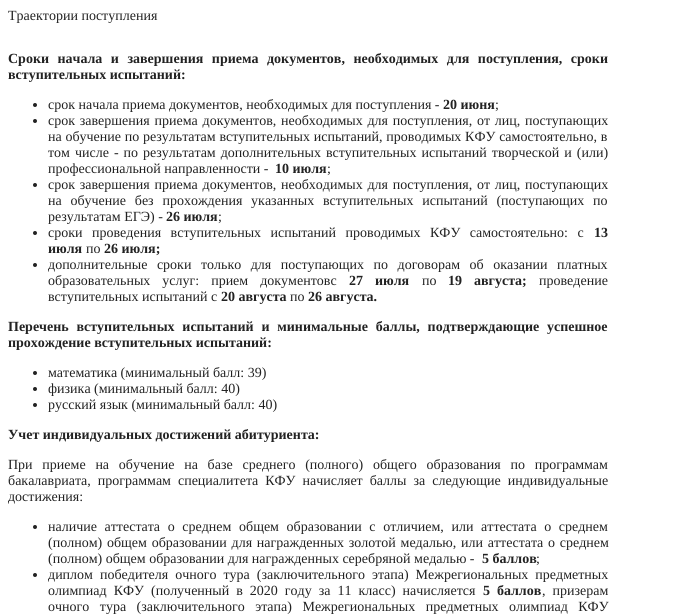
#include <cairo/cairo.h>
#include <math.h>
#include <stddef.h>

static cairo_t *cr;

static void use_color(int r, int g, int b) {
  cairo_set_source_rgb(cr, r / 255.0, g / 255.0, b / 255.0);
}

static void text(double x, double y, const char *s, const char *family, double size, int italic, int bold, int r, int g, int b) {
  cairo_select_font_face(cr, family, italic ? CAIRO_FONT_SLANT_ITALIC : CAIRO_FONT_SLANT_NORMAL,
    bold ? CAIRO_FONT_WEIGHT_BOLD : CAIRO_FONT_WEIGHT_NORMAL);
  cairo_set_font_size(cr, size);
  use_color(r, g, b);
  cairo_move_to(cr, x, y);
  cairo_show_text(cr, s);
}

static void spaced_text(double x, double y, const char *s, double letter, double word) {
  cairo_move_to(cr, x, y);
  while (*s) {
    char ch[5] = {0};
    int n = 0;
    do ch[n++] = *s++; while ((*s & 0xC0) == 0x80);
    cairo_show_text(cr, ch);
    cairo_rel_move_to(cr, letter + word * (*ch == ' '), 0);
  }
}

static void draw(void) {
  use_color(255, 255, 255);
  cairo_paint(cr);
  use_color(34, 34, 34);
  cairo_arc(cr, 35, 105, 2, 0, 2 * M_PI);
  cairo_fill(cr);
  cairo_arc(cr, 35, 121, 2, 0, 2 * M_PI);
  cairo_fill(cr);
  cairo_arc(cr, 35, 185, 2, 0, 2 * M_PI);
  cairo_fill(cr);
  cairo_arc(cr, 35, 233, 2, 0, 2 * M_PI);
  cairo_fill(cr);
  cairo_arc(cr, 35, 265, 2, 0, 2 * M_PI);
  cairo_fill(cr);
  cairo_arc(cr, 35, 373, 2, 0, 2 * M_PI);
  cairo_fill(cr);
  cairo_arc(cr, 35, 389, 2, 0, 2 * M_PI);
  cairo_fill(cr);
  cairo_arc(cr, 35, 405, 2, 0, 2 * M_PI);
  cairo_fill(cr);
  cairo_arc(cr, 35, 527, 2, 0, 2 * M_PI);
  cairo_fill(cr);
  cairo_arc(cr, 35, 575, 2, 0, 2 * M_PI);
  cairo_fill(cr);
  text(8, 20, "Траектории поступления", "Liberation Serif", 14, 0, 0, 34, 34, 34);
  cairo_select_font_face(cr, "Liberation Serif", CAIRO_FONT_SLANT_NORMAL, CAIRO_FONT_WEIGHT_BOLD);
  spaced_text(8, 63, "Сроки начала и завершения приема документов, необходимых для поступления, сроки", 0, 5);
  text(8, 79, "вступительных испытаний:", "Liberation Serif", 14, 0, 1, 34, 34, 34);
  text(48, 109, "срок начала приема документов, необходимых для поступления -", "Liberation Serif", 14, 0, 0, 34, 34, 34);
  text(443, 109, "20 июня", "Liberation Serif", 14, 0, 1, 34, 34, 34);
  text(495, 109, ";", "Liberation Serif", 14, 0, 0, 34, 34, 34);
  spaced_text(48, 125, "срок завершения приема документов, необходимых для поступления, от лиц, поступающих", 0, 1.25);
  spaced_text(48, 141, "на обучение по результатам вступительных испытаний, проводимых КФУ самостоятельно, в", 0, 0.25);
  spaced_text(48, 157, "том числе - по результатам дополнительных вступительных испытаний творческой и (или)", 0, 1.5);
  text(48, 173, "профессиональной направленности -", "Liberation Serif", 14, 0, 0, 34, 34, 34);
  text(275, 173, "10 июля", "Liberation Serif", 14, 0, 1, 34, 34, 34);
  text(327, 173, ";", "Liberation Serif", 14, 0, 0, 34, 34, 34);
  spaced_text(48, 189, "срок завершения приема документов, необходимых для поступления, от лиц, поступающих", 0, 1.25);
  spaced_text(48, 205, "на обучение без прохождения указанных вступительных испытаний (поступающих по", 0, 5.25);
  text(48, 221, "результатам ЕГЭ) -", "Liberation Serif", 14, 0, 0, 34, 34, 34);
  text(166, 221, "26 июля", "Liberation Serif", 14, 0, 1, 34, 34, 34);
  text(218, 221, ";", "Liberation Serif", 14, 0, 0, 34, 34, 34);
  spaced_text(48, 237, "сроки проведения вступительных испытаний проводимых КФУ самостоятельно: с", 0, 6);
  text(594, 237, "13", "Liberation Serif", 14, 0, 1, 34, 34, 34);
  text(48, 253, "июля", "Liberation Serif", 14, 0, 1, 34, 34, 34);
  text(86, 253, "по", "Liberation Serif", 14, 0, 0, 34, 34, 34);
  text(104, 253, "26 июля;", "Liberation Serif", 14, 0, 1, 34, 34, 34);
  cairo_select_font_face(cr, "Liberation Serif", CAIRO_FONT_SLANT_NORMAL, CAIRO_FONT_WEIGHT_NORMAL);
  spaced_text(48, 269, "дополнительные сроки только для поступающих по договорам об оказании платных", 0, 6);
  spaced_text(48, 285, "образовательных услуг: прием документовс", 0, 8.5);
  cairo_select_font_face(cr, "Liberation Serif", CAIRO_FONT_SLANT_NORMAL, CAIRO_FONT_WEIGHT_BOLD);
  spaced_text(349, 285, "27 июля", 0, 8.5);
  text(422, 285, "по", "Liberation Serif", 14, 0, 0, 34, 34, 34);
  cairo_select_font_face(cr, "Liberation Serif", CAIRO_FONT_SLANT_NORMAL, CAIRO_FONT_WEIGHT_BOLD);
  spaced_text(448, 285, "19 августа;", 0, 8.5);
  text(539, 285, "проведение", "Liberation Serif", 14, 0, 0, 34, 34, 34);
  text(48, 301, "вступительных испытаний с", "Liberation Serif", 14, 0, 0, 34, 34, 34);
  text(221, 301, "20 августа", "Liberation Serif", 14, 0, 1, 34, 34, 34);
  text(290, 301, "по", "Liberation Serif", 14, 0, 0, 34, 34, 34);
  text(308, 301, "26 августа.", "Liberation Serif", 14, 0, 1, 34, 34, 34);
  spaced_text(8, 331, "Перечень вступительных испытаний и минимальные баллы, подтверждающие успешное", 0, 4.25);
  text(8, 347, "прохождение вступительных испытаний:", "Liberation Serif", 14, 0, 1, 34, 34, 34);
  text(48, 377, "математика (минимальный балл: 39)", "Liberation Serif", 14, 0, 0, 34, 34, 34);
  text(48, 393, "физика (минимальный балл: 40)", "Liberation Serif", 14, 0, 0, 34, 34, 34);
  text(48, 409, "русский язык (минимальный балл: 40)", "Liberation Serif", 14, 0, 0, 34, 34, 34);
  text(8, 439, "Учет индивидуальных достижений абитуриента:", "Liberation Serif", 14, 0, 1, 34, 34, 34);
  cairo_select_font_face(cr, "Liberation Serif", CAIRO_FONT_SLANT_NORMAL, CAIRO_FONT_WEIGHT_NORMAL);
  spaced_text(8, 469, "При приеме на обучение на базе среднего (полного) общего образования по программам", 0, 6.25);
  spaced_text(8, 485, "бакалавриата, программам специалитета КФУ начисляет баллы за следующие индивидуальные", 0, 3.5);
  text(8, 501, "достижения:", "Liberation Serif", 14, 0, 0, 34, 34, 34);
  spaced_text(48, 531, "наличие аттестата о среднем общем образовании с отличием, или аттестата о среднем", 0, 4.1);
  spaced_text(48, 547, "(полном) общем образовании для награжденных золотой медалью, или аттестата о среднем", 0, 1.25);
  text(48, 563, "(полном) общем образовании для награжденных серебряной медалью -", "Liberation Serif", 14, 0, 0, 34, 34, 34);
  text(482, 563, "5 баллов", "Liberation Serif", 14, 0, 1, 34, 34, 34);
  text(536, 563, ";", "Liberation Serif", 14, 0, 0, 34, 34, 34);
  spaced_text(48, 579, "диплом победителя очного тура (заключительного этапа) Межрегиональных предметных", 0, 3.5);
  spaced_text(48, 595, "олимпиад КФУ (полученный в 2020 году за 11 класс) начисляется", 0, 3.5);
  cairo_select_font_face(cr, "Liberation Serif", CAIRO_FONT_SLANT_NORMAL, CAIRO_FONT_WEIGHT_BOLD);
  spaced_text(483, 595, "5 баллов", 0, 3.5);
  cairo_select_font_face(cr, "Liberation Serif", CAIRO_FONT_SLANT_NORMAL, CAIRO_FONT_WEIGHT_NORMAL);
  spaced_text(542, 595, ", призерам", 0, 3.5);
  spaced_text(48, 611, "очного тура (заключительного этапа) Межрегиональных предметных олимпиад КФУ", 0, 7);
}

int main(void) {
  cairo_surface_t *surface = cairo_image_surface_create(CAIRO_FORMAT_RGB24, 700, 614);
  cr = cairo_create(surface);
  cairo_font_options_t *options = cairo_font_options_create();
  cairo_font_options_set_hint_metrics(options, CAIRO_HINT_METRICS_OFF);
  cairo_font_options_set_hint_style(options, CAIRO_HINT_STYLE_NONE);
  cairo_set_font_options(cr, options);
  cairo_set_miter_limit(cr, 4);
  draw();
  cairo_surface_write_to_png(surface, "out.png");
  cairo_font_options_destroy(options);
  cairo_destroy(cr);
  cairo_surface_destroy(surface);
  return 0;
}
